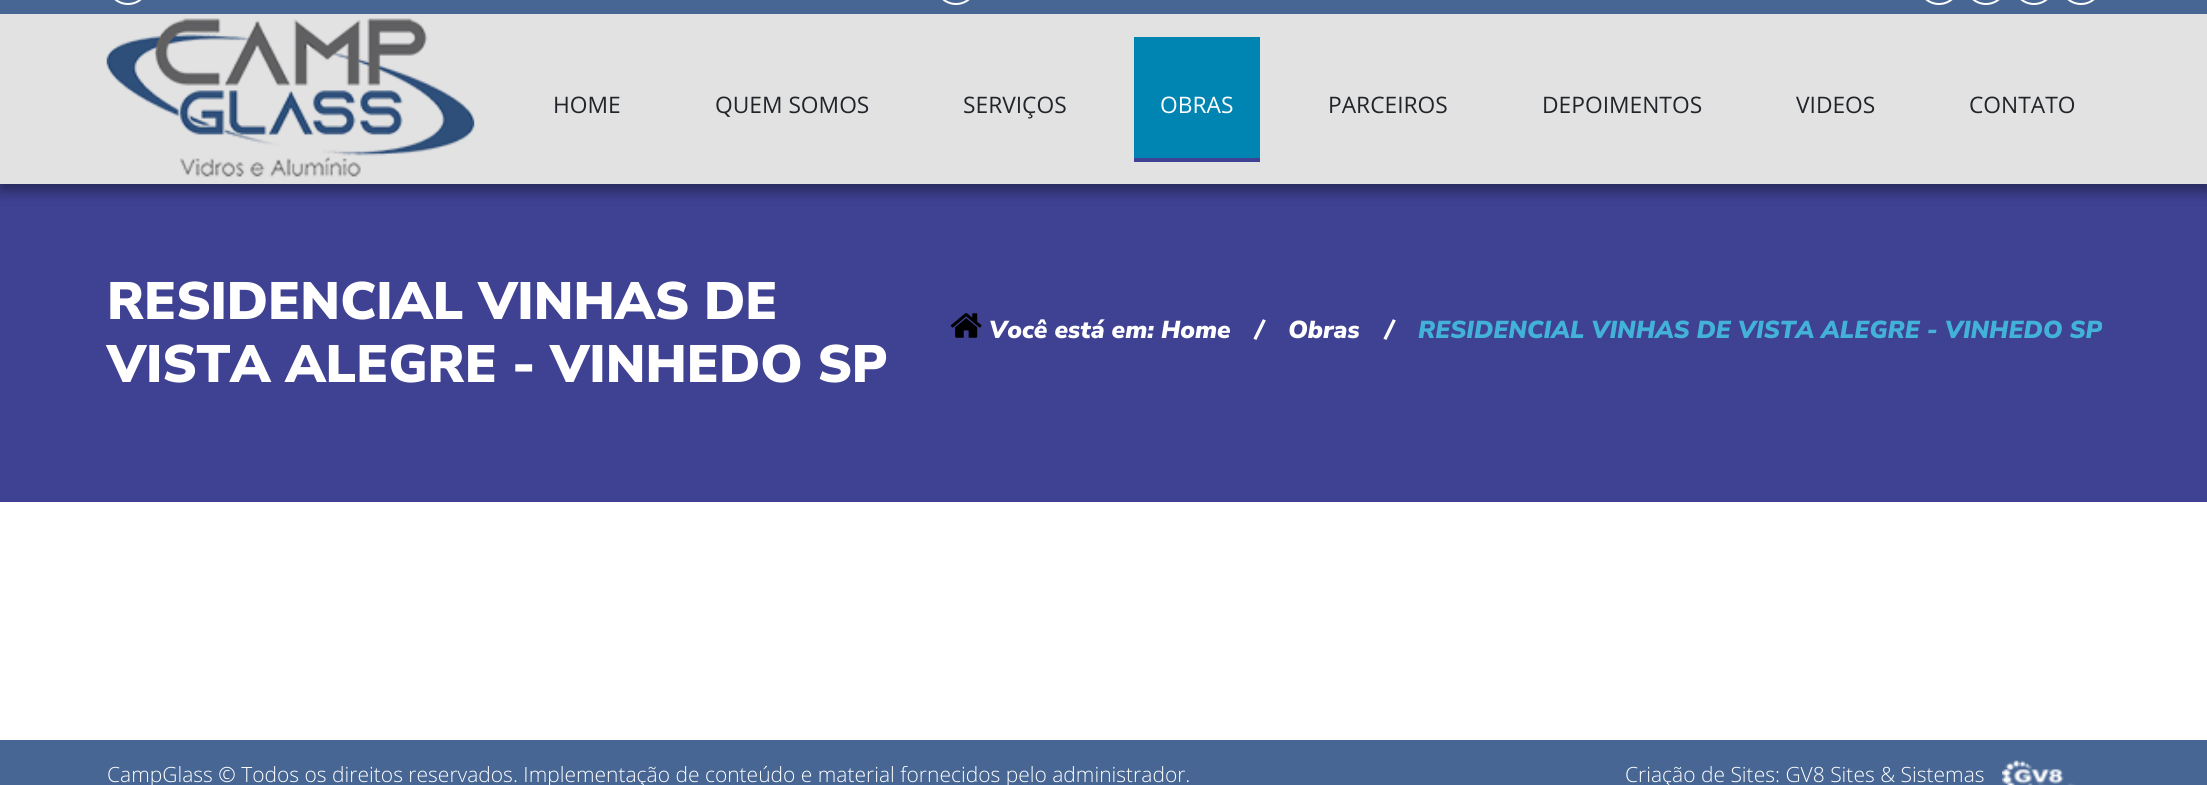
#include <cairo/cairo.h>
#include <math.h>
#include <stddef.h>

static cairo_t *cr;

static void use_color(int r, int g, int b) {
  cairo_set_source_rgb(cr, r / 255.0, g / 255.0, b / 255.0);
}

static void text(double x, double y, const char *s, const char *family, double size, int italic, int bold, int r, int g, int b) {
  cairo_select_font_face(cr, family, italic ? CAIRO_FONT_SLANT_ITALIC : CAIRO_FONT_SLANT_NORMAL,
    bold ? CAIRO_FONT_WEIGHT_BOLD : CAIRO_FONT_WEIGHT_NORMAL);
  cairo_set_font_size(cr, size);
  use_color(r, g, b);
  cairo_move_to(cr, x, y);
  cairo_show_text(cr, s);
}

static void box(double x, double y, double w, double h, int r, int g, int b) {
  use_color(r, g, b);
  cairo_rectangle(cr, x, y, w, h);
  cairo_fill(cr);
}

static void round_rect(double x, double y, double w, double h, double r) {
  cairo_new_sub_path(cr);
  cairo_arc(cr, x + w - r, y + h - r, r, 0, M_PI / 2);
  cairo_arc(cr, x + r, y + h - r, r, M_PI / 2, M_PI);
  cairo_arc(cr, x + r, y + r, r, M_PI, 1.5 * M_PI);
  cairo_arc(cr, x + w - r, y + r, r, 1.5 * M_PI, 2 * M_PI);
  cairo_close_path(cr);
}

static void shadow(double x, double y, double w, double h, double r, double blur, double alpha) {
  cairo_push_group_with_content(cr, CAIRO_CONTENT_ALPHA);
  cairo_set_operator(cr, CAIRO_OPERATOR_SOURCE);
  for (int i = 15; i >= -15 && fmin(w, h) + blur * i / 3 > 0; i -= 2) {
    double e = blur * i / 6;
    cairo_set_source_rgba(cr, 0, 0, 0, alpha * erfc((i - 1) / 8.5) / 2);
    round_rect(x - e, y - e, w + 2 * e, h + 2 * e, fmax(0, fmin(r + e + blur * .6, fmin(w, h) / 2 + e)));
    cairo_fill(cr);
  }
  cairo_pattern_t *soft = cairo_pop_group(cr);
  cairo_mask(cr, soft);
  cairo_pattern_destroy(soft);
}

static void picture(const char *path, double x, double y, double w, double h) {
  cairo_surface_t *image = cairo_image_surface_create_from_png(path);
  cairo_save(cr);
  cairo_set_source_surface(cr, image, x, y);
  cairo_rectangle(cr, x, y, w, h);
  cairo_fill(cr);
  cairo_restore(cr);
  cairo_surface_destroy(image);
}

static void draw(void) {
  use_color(255, 255, 255);
  cairo_paint(cr);
  box(0, 184, 2207, 318, 63, 65, 147);
  use_color(0, 0, 0);
  shadow(0, 21, 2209, 170, 0, 7, 0.4);
  box(0, 0, 2207, 14, 71, 102, 148);
  round_rect(108, -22, 40, 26, 20);
  use_color(255, 255, 255);
  cairo_stroke(cr);
  round_rect(936, -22, 40, 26, 20);
  cairo_stroke(cr);
  round_rect(1919, -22, 40, 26, 20);
  cairo_stroke(cr);
  round_rect(1966, -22, 40, 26, 20);
  cairo_stroke(cr);
  round_rect(2014, -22, 40, 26, 20);
  cairo_stroke(cr);
  round_rect(2061, -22, 40, 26, 20);
  cairo_stroke(cr);
  box(0, 14, 2207, 170, 226, 226, 226);
  picture("img_01.png", 106, 18, 369, 159);
  box(1134, 37, 126, 121, 0, 133, 178);
  box(1134, 158, 126, 4, 63, 65, 148);
  picture("img_02.png", 950, 313, 32, 25);
  box(0, 740, 2207, 45, 71, 102, 148);
  picture("img_03.png", 2002, 760, 74, 25);
  text(553, 113, "HOME", "Open Sans", 22.75, 0, 0, 33, 37, 41);
  text(715, 113, "QUEM SOMOS", "Open Sans", 22.75, 0, 0, 33, 37, 41);
  text(963, 113, "SERVIÇOS", "Open Sans", 22.75, 0, 0, 33, 37, 41);
  text(1160, 113, "OBRAS", "Open Sans", 22.75, 0, 0, 255, 255, 255);
  text(1328, 113, "PARCEIROS", "Open Sans", 22.75, 0, 0, 33, 37, 41);
  text(1542, 113, "DEPOIMENTOS", "Open Sans", 22.75, 0, 0, 33, 37, 41);
  text(1796, 113, "VIDEOS", "Open Sans", 22.75, 0, 0, 33, 37, 41);
  text(1969, 113, "CONTATO", "Open Sans", 22.75, 0, 0, 33, 37, 41);
  text(107, 319, "RESIDENCIAL VINHAS DE", "Nunito Sans Black", 52.5, 0, 0, 255, 255, 255);
  text(107, 382, "VISTA ALEGRE - VINHEDO SP", "Nunito Sans Black", 52.5, 0, 0, 255, 255, 255);
  text(989, 338, "Você está em: Home", "Nunito Sans ExtraLight", 24.5, 1, 0, 255, 255, 255);
  text(1255, 338, "/", "Nunito Sans ExtraLight", 24.5, 1, 0, 255, 255, 255);
  text(1288, 338, "Obras", "Nunito Sans ExtraLight", 24.5, 1, 0, 255, 255, 255);
  text(1385, 338, "/", "Nunito Sans ExtraLight", 24.5, 1, 0, 255, 255, 255);
  text(1418, 338, "RESIDENCIAL VINHAS DE VISTA ALEGRE - VINHEDO SP", "Nunito Sans ExtraLight", 24.5, 1, 0, 66, 178, 216);
  text(107, 782, "CampGlass © Todos os direitos reservados. Implementação de conteúdo e material fornecidos pelo administrador.", "Open Sans Light", 21, 0, 0, 255, 255, 255);
  text(1625, 782, "Criação de Sites: GV8 Sites & Sistemas", "Open Sans Light", 21, 0, 0, 255, 255, 255);
}

int main(void) {
  cairo_surface_t *surface = cairo_image_surface_create(CAIRO_FORMAT_RGB24, 2207, 785);
  cr = cairo_create(surface);
  cairo_font_options_t *options = cairo_font_options_create();
  cairo_font_options_set_hint_metrics(options, CAIRO_HINT_METRICS_OFF);
  cairo_font_options_set_hint_style(options, CAIRO_HINT_STYLE_NONE);
  cairo_set_font_options(cr, options);
  cairo_set_miter_limit(cr, 4);
  draw();
  cairo_surface_write_to_png(surface, "out.png");
  cairo_font_options_destroy(options);
  cairo_destroy(cr);
  cairo_surface_destroy(surface);
  return 0;
}
